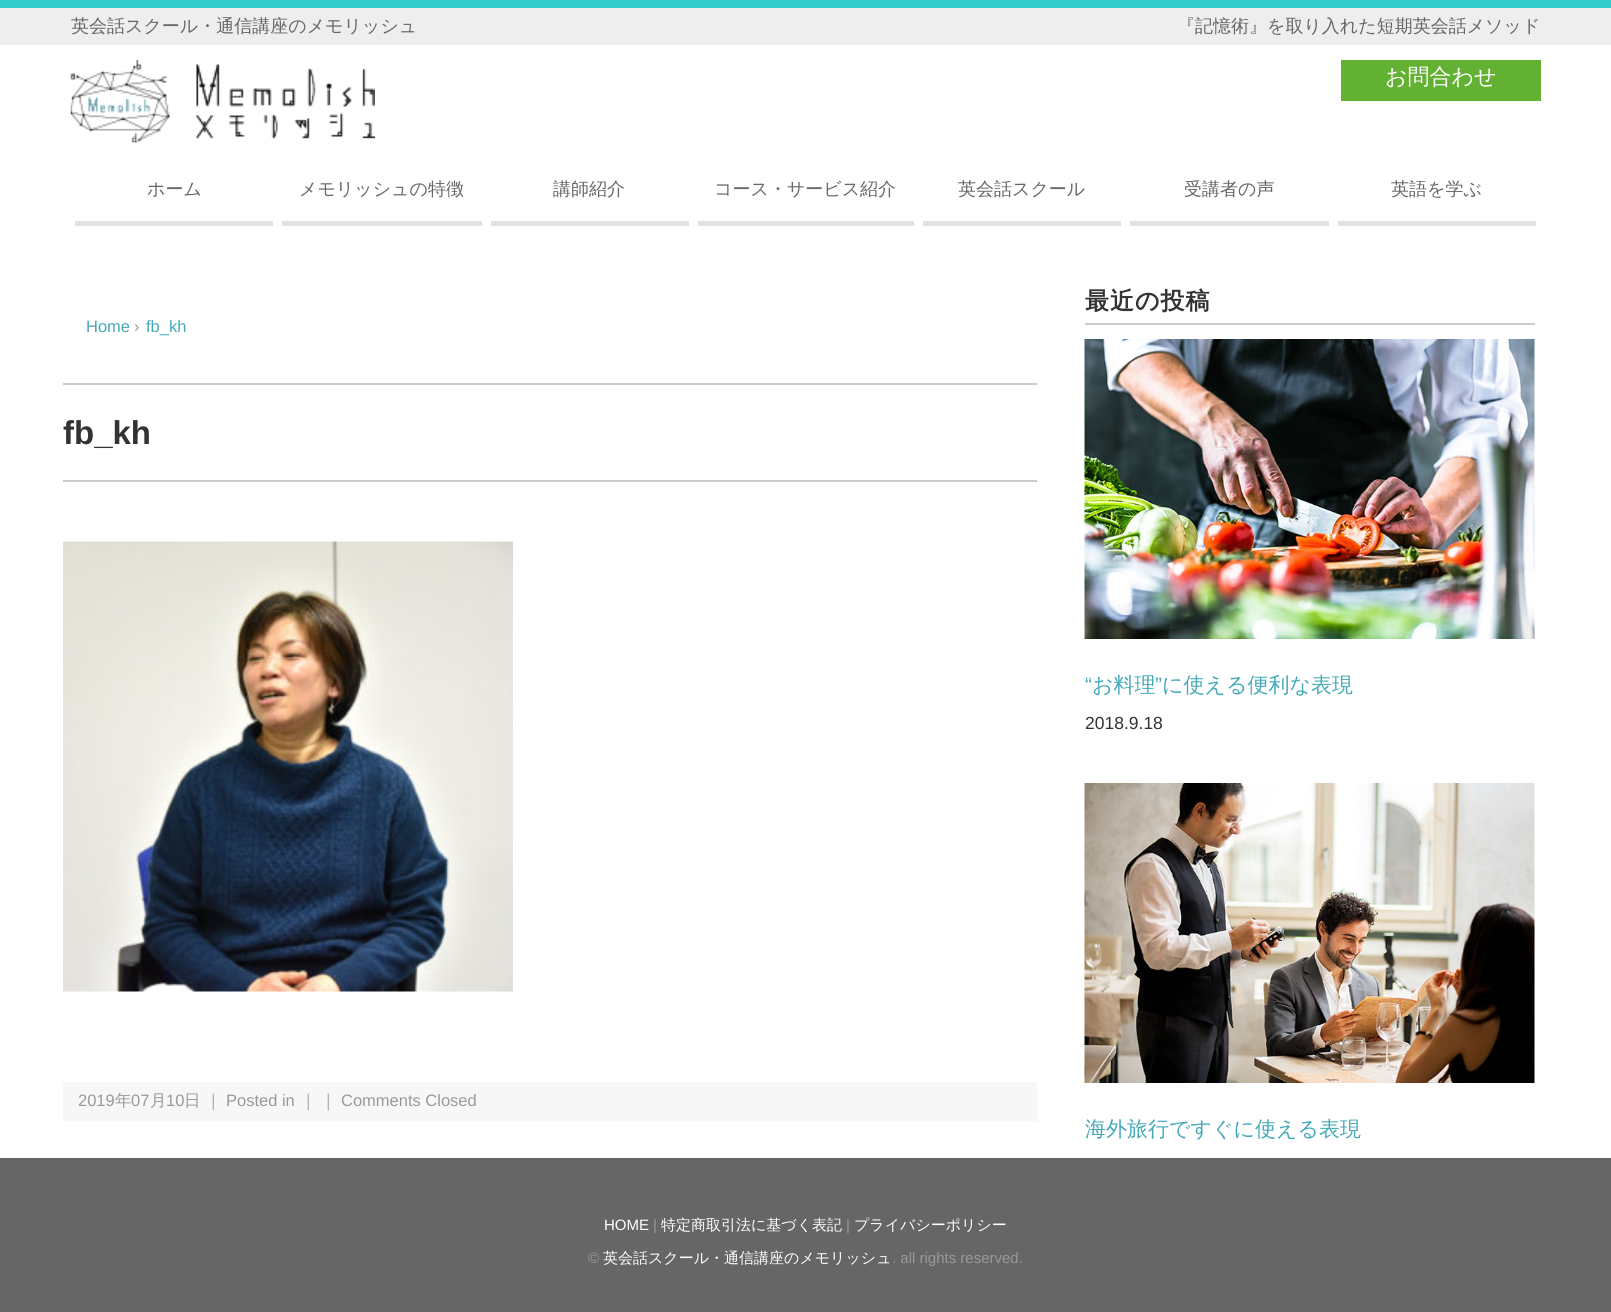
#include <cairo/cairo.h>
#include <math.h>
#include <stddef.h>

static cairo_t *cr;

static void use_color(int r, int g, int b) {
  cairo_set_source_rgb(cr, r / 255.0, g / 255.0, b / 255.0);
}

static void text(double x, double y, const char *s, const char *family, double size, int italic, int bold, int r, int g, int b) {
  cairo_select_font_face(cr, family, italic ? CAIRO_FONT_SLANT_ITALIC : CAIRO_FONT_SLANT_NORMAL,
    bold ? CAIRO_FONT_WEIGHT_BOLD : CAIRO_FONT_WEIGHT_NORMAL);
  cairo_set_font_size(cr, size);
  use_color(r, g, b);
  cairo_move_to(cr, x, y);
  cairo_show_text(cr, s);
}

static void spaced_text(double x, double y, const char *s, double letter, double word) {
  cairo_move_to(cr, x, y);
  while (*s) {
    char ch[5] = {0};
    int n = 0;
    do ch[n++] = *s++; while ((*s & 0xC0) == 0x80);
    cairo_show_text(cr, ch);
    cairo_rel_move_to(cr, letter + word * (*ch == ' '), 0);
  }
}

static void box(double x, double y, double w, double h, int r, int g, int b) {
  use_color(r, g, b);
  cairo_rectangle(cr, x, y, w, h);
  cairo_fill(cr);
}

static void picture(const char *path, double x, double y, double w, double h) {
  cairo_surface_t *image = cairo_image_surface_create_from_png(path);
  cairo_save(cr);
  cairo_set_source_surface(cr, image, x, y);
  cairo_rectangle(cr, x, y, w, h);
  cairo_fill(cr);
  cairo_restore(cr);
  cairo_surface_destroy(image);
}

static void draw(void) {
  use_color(255, 255, 255);
  cairo_paint(cr);
  box(0, 0, 1611, 8, 51, 204, 204);
  box(0, 8, 1611, 37, 238, 238, 238);
  picture("img_01.png", 70, 60, 305, 83);
  box(1341, 60, 200, 41, 99, 177, 50);
  box(75, 221, 198, 5, 225, 225, 225);
  box(282, 221, 200, 5, 225, 225, 225);
  box(491, 221, 198, 5, 225, 225, 225);
  box(698, 221, 216, 5, 225, 225, 225);
  box(923, 221, 198, 5, 225, 225, 225);
  box(1130, 221, 199, 5, 225, 225, 225);
  box(1338, 221, 198, 5, 225, 225, 225);
  box(63, 383, 974, 2, 204, 204, 204);
  box(63, 480, 974, 2, 204, 204, 204);
  picture("img_02.png", 63, 541, 450, 451);
  box(63, 1082, 974, 39, 247, 247, 247);
  box(1085, 323, 450, 2, 204, 204, 204);
  picture("img_03.png", 1084, 339, 451, 300);
  picture("img_04.png", 1084, 783, 451, 300);
  box(0, 1158, 1611, 154, 102, 102, 102);
  cairo_save(cr);
  cairo_rectangle(cr, 71, 17, 1470, 19);
  cairo_clip(cr);
  text(71, 32, "英会話スクール・通信講座のメモリッシュ", "WenQuanYi Zen Hei Medium", 18, 0, 0, 102, 102, 102);
  cairo_restore(cr);
  text(1177, 32, "『記憶術』を取り入れた短期英会話メソッド", "WenQuanYi Zen Hei Medium", 18, 0, 0, 102, 102, 102);
  text(1385, 84, "お問合わせ", "WenQuanYi Zen Hei Medium", 22, 0, 0, 255, 255, 255);
  text(147, 195, "ホーム", "WenQuanYi Zen Hei Medium", 18, 0, 0, 102, 102, 102);
  text(299, 195, "メモリッシュの特徴", "WenQuanYi Zen Hei Medium", 18, 0, 0, 102, 102, 102);
  text(553, 195, "講師紹介", "WenQuanYi Zen Hei Medium", 18, 0, 0, 102, 102, 102);
  text(714, 195, "コース・サービス紹介", "WenQuanYi Zen Hei Medium", 18, 0, 0, 102, 102, 102);
  text(958, 195, "英会話スクール", "WenQuanYi Zen Hei Medium", 18, 0, 0, 102, 102, 102);
  text(1184, 195, "受講者の声", "WenQuanYi Zen Hei Medium", 18, 0, 0, 102, 102, 102);
  text(1391, 195, "英語を学ぶ", "WenQuanYi Zen Hei Medium", 18, 0, 0, 102, 102, 102);
  text(86, 332, "Home", "Liberation Sans", 16.5, 0, 0, 69, 170, 184);
  text(134, 332, "›", "Liberation Sans", 16.5, 0, 0, 153, 153, 153);
  text(146, 332, "fb_kh", "Liberation Sans", 16.5, 0, 0, 69, 170, 184);
  text(63, 444, "fb_kh", "Liberation Sans", 33, 0, 1, 51, 51, 51);
  text(78, 1106, "2019", "Liberation Sans", 16.5, 0, 0, 153, 153, 153);
  text(115, 1106, "年", "WenQuanYi Zen Hei Medium", 16.5, 0, 0, 153, 153, 153);
  text(131, 1106, "07", "Liberation Sans", 16.5, 0, 0, 153, 153, 153);
  text(150, 1106, "月", "WenQuanYi Zen Hei Medium", 16.5, 0, 0, 153, 153, 153);
  text(166, 1106, "10", "Liberation Sans", 16.5, 0, 0, 153, 153, 153);
  text(184, 1106, "日", "WenQuanYi Zen Hei Medium", 16.5, 0, 0, 153, 153, 153);
  text(205, 1106, "｜", "WenQuanYi Zen Hei Medium", 16.5, 0, 0, 153, 153, 153);
  text(226, 1106, "Posted in", "Liberation Sans", 16.5, 0, 0, 153, 153, 153);
  text(300, 1106, "｜", "WenQuanYi Zen Hei Medium", 16.5, 0, 0, 153, 153, 153);
  text(320, 1106, "｜", "WenQuanYi Zen Hei Medium", 16.5, 0, 0, 153, 153, 153);
  text(341, 1106, "Comments Closed", "Liberation Sans", 16.5, 0, 0, 153, 153, 153);
  cairo_select_font_face(cr, "WenQuanYi Zen Hei", CAIRO_FONT_SLANT_NORMAL, CAIRO_FONT_WEIGHT_BOLD);
  cairo_set_font_size(cr, 24);
  use_color(51, 51, 51);
  spaced_text(1085, 309, "最近の投稿", 1, 0);
  text(1085, 692, "“", "Liberation Sans", 21, 0, 0, 69, 170, 184);
  text(1092, 692, "お料理", "WenQuanYi Zen Hei Medium", 21, 0, 0, 69, 170, 184);
  text(1155, 692, "”", "Liberation Sans", 21, 0, 0, 69, 170, 184);
  text(1162, 692, "に使える便利な表現", "WenQuanYi Zen Hei Medium", 21, 0, 0, 69, 170, 184);
  text(1085, 729, "2018.9.18", "Liberation Sans", 17.5, 0, 0, 51, 51, 51);
  text(1085, 1136, "海外旅行ですぐに使える表現", "WenQuanYi Zen Hei Medium", 21, 0, 0, 69, 170, 184);
  text(604, 1230, "HOME", "Liberation Sans", 15, 0, 0, 255, 255, 255);
  text(653, 1230, "|", "Liberation Sans", 15, 0, 0, 153, 153, 153);
  text(661, 1230, "特定商取引法に基づく表記", "WenQuanYi Zen Hei Medium", 15, 0, 0, 255, 255, 255);
  text(846, 1230, "|", "Liberation Sans", 15, 0, 0, 153, 153, 153);
  text(854, 1230, "プライバシーポリシー", "WenQuanYi Zen Hei Medium", 15, 0, 0, 255, 255, 255);
  text(588, 1263, "©", "Liberation Sans", 15, 0, 0, 153, 153, 153);
  text(603, 1263, "英会話スクール・通信講座のメモリッシュ", "WenQuanYi Zen Hei Medium", 15, 0, 0, 255, 255, 255);
  text(892, 1263, ". all rights reserved.", "Liberation Sans", 15, 0, 0, 153, 153, 153);
}

int main(void) {
  cairo_surface_t *surface = cairo_image_surface_create(CAIRO_FORMAT_RGB24, 1611, 1312);
  cr = cairo_create(surface);
  cairo_font_options_t *options = cairo_font_options_create();
  cairo_font_options_set_hint_metrics(options, CAIRO_HINT_METRICS_OFF);
  cairo_font_options_set_hint_style(options, CAIRO_HINT_STYLE_NONE);
  cairo_set_font_options(cr, options);
  cairo_set_miter_limit(cr, 4);
  draw();
  cairo_surface_write_to_png(surface, "out.png");
  cairo_font_options_destroy(options);
  cairo_destroy(cr);
  cairo_surface_destroy(surface);
  return 0;
}
